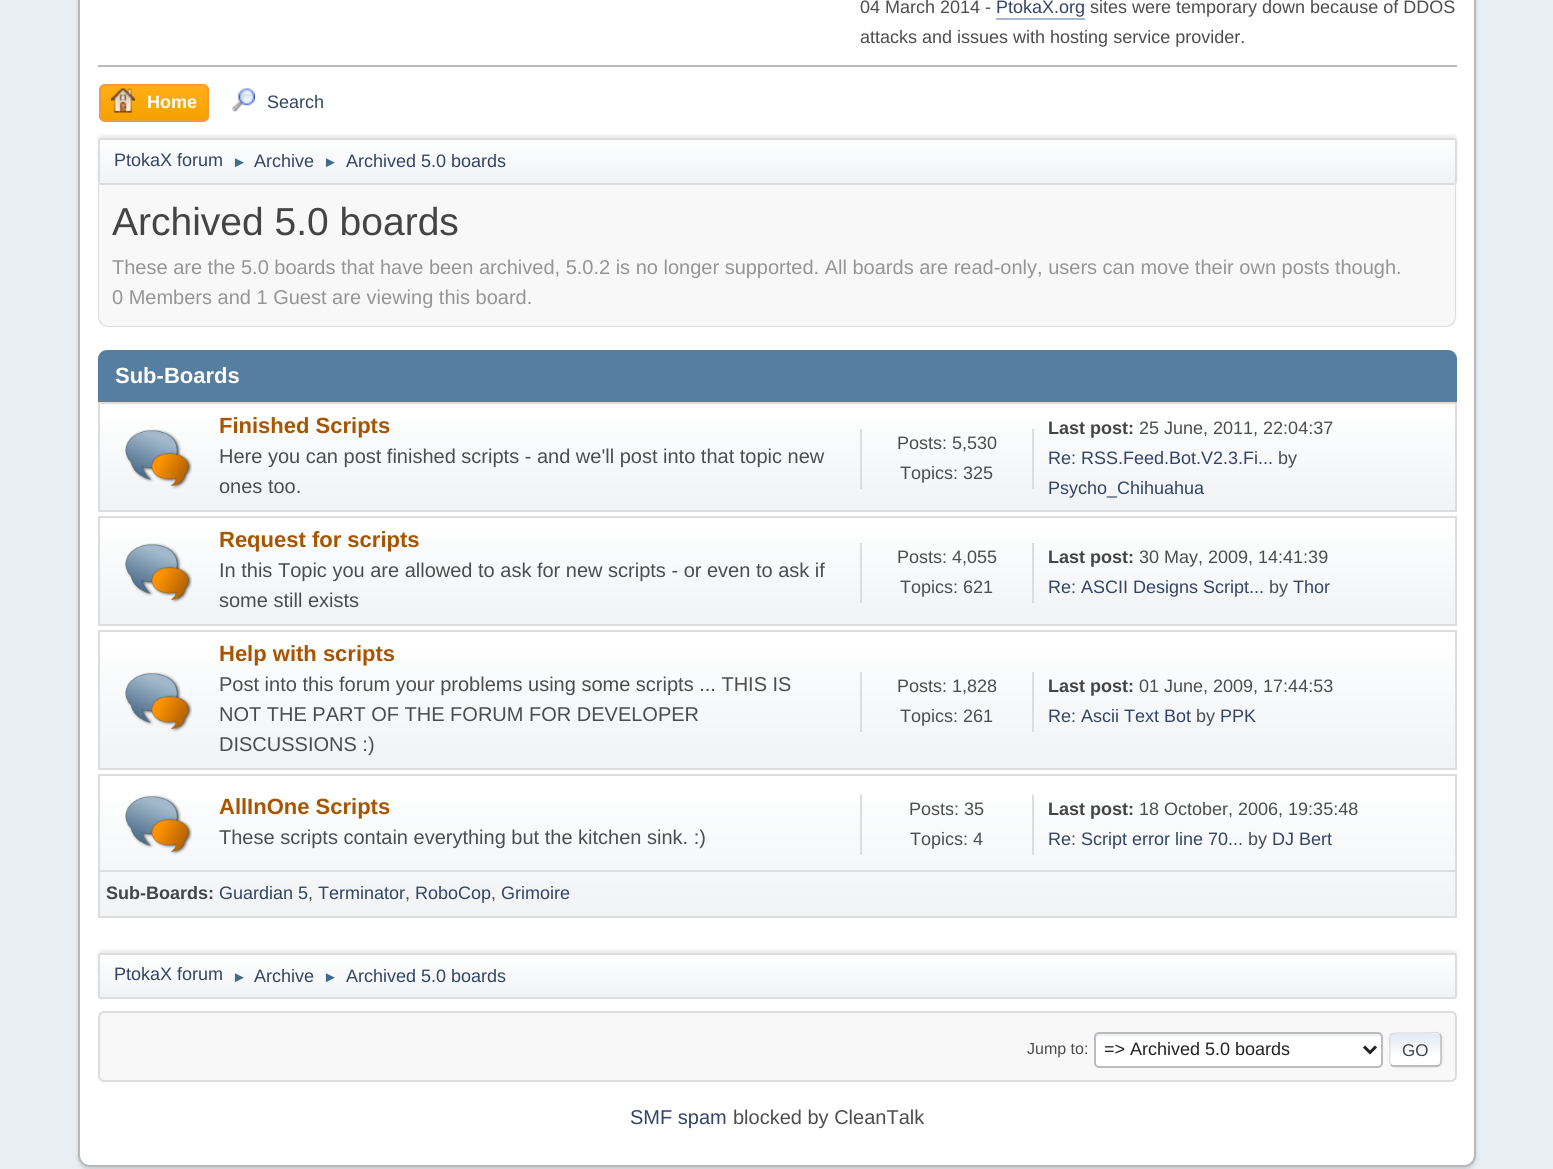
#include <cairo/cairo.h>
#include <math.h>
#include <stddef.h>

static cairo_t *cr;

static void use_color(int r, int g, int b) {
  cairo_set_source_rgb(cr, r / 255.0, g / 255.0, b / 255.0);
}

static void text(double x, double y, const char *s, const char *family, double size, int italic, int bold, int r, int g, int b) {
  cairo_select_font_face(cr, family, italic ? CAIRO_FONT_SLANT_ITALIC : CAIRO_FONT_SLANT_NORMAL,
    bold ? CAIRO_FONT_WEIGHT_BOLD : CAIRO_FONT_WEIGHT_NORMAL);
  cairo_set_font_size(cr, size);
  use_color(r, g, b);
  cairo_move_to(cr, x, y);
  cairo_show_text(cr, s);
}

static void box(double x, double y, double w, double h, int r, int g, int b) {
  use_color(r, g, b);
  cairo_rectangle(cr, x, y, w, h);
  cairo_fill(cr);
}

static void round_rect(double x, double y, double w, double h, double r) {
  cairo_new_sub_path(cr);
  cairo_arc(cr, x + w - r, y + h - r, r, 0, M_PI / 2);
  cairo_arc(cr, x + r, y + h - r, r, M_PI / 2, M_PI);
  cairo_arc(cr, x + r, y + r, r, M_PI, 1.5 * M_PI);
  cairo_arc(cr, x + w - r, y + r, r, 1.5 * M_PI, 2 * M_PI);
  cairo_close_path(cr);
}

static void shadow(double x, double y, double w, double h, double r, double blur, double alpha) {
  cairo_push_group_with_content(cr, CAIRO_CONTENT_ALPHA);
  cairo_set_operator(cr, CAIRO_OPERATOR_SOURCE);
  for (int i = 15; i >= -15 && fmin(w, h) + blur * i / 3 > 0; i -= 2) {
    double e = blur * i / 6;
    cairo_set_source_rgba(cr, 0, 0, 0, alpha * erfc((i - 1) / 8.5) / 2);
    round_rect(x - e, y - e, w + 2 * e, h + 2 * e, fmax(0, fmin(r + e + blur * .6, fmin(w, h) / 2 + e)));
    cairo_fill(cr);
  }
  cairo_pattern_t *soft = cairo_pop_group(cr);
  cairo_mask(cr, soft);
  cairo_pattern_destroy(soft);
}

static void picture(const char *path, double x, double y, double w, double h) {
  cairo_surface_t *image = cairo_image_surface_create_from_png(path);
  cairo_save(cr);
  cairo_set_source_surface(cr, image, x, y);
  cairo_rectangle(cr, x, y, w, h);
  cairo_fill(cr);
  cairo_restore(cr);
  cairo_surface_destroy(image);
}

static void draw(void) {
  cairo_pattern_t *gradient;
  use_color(233, 238, 242);
  cairo_paint(cr);
  use_color(0, 0, 0);
  shadow(78, -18, 1398, 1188, 12, 2, 0.14);
  use_color(255, 255, 255);
  round_rect(79, -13, 1396, 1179, 11);
  cairo_fill_preserve(cr);
  use_color(184, 184, 184);
  cairo_stroke(cr);
  box(98, 65, 1359, 2, 187, 187, 187);
  box(996, 18, 89, 2, 168, 182, 207);
  cairo_save(cr);
  round_rect(99, 84, 110, 38, 6);
  cairo_clip(cr);
  gradient = cairo_pattern_create_linear(154, 86, 154, 120);
  cairo_pattern_add_color_stop_rgba(gradient, 0, 1, 0.682, 0.078, 1);
  cairo_pattern_add_color_stop_rgba(gradient, 1, 0.961, 0.631, 0, 1);
  cairo_set_source(cr, gradient);
  cairo_pattern_destroy(gradient);
  cairo_rectangle(cr, 99, 86, 110, 34);
  cairo_fill(cr);
  cairo_restore(cr);
  round_rect(100, 85, 108, 36, 5);
  use_color(244, 154, 58);
  cairo_stroke(cr);
  picture("img_01.png", 111, 88, 24, 25);
  picture("img_02.png", 232, 88, 23, 24);
  use_color(0, 0, 0);
  shadow(98, 135, 1359, 47, 3, 1.5, 0.08);
  cairo_save(cr);
  round_rect(98, 138, 1359, 47, 3);
  cairo_clip(cr);
  gradient = cairo_pattern_create_linear(777, 139, 777, 183);
  cairo_pattern_add_color_stop_rgba(gradient, 0, 1, 1, 1, 1);
  cairo_pattern_add_color_stop_rgba(gradient, 0.95, 0.945, 0.953, 0.961, 1);
  cairo_set_source(cr, gradient);
  cairo_pattern_destroy(gradient);
  cairo_rectangle(cr, 98, 140, 1359, 43);
  cairo_fill(cr);
  cairo_restore(cr);
  round_rect(99, 139, 1357, 45, 2);
  use_color(221, 221, 221);
  cairo_stroke(cr);
  use_color(248, 248, 248);
  cairo_new_path(cr);
  cairo_move_to(cr, 98, 185);
  cairo_line_to(cr, 1457, 185);
  cairo_line_to(cr, 1457, 316);
  cairo_curve_to(cr, 1457, 322, 1452, 327, 1446, 327);
  cairo_line_to(cr, 109, 327);
  cairo_curve_to(cr, 103, 327, 98, 322, 98, 316);
  cairo_close_path(cr);
  cairo_fill(cr);
  use_color(221, 221, 221);
  cairo_set_fill_rule(cr, CAIRO_FILL_RULE_EVEN_ODD);
  cairo_new_path(cr);
  cairo_move_to(cr, 98, 184);
  cairo_line_to(cr, 1456, 184);
  cairo_line_to(cr, 1456, 316);
  cairo_curve_to(cr, 1456, 322, 1452, 327, 1446, 327);
  cairo_line_to(cr, 108, 327);
  cairo_curve_to(cr, 102, 327, 98, 322, 98, 316);
  cairo_close_path(cr);
  cairo_move_to(cr, 99, 184);
  cairo_line_to(cr, 1455, 184);
  cairo_line_to(cr, 1455, 316);
  cairo_curve_to(cr, 1455, 321, 1451, 326, 1446, 326);
  cairo_line_to(cr, 108, 326);
  cairo_curve_to(cr, 103, 326, 99, 321, 99, 316);
  cairo_close_path(cr);
  cairo_fill(cr);
  use_color(85, 126, 160);
  cairo_new_path(cr);
  cairo_move_to(cr, 107, 350);
  cairo_line_to(cr, 1448, 350);
  cairo_curve_to(cr, 1453, 350, 1457, 354, 1457, 359);
  cairo_line_to(cr, 1457, 402);
  cairo_line_to(cr, 98, 402);
  cairo_line_to(cr, 98, 359);
  cairo_curve_to(cr, 98, 354, 102, 350, 107, 350);
  cairo_close_path(cr);
  cairo_fill(cr);
  box(98, 401, 1359, 1, 119, 119, 119);
  gradient = cairo_pattern_create_linear(777, 403, 777, 510);
  cairo_pattern_add_color_stop_rgba(gradient, 0, 1, 1, 1, 1);
  cairo_pattern_add_color_stop_rgba(gradient, 0.95, 0.945, 0.953, 0.961, 1);
  cairo_set_source(cr, gradient);
  cairo_pattern_destroy(gradient);
  cairo_rectangle(cr, 100, 421, 1355, 89);
  cairo_fill(cr);
  cairo_rectangle(cr, 99, 403, 1357, 108);
  use_color(221, 221, 221);
  cairo_stroke(cr);
  picture("img_03.png", 125, 429, 67, 60);
  box(1032, 429, 2, 60, 221, 221, 221);
  box(860, 429, 2, 60, 221, 221, 221);
  gradient = cairo_pattern_create_linear(777, 517, 777, 624);
  cairo_pattern_add_color_stop_rgba(gradient, 0, 1, 1, 1, 1);
  cairo_pattern_add_color_stop_rgba(gradient, 0.95, 0.945, 0.953, 0.961, 1);
  cairo_set_source(cr, gradient);
  cairo_pattern_destroy(gradient);
  cairo_rectangle(cr, 100, 535, 1355, 89);
  cairo_fill(cr);
  cairo_rectangle(cr, 99, 517, 1357, 108);
  use_color(221, 221, 221);
  cairo_stroke(cr);
  picture("img_03.png", 125, 543, 67, 60);
  box(1032, 543, 2, 60, 221, 221, 221);
  box(860, 543, 2, 60, 221, 221, 221);
  gradient = cairo_pattern_create_linear(777, 631, 777, 768);
  cairo_pattern_add_color_stop_rgba(gradient, 0, 1, 1, 1, 1);
  cairo_pattern_add_color_stop_rgba(gradient, 0.95, 0.945, 0.953, 0.961, 1);
  cairo_set_source(cr, gradient);
  cairo_pattern_destroy(gradient);
  cairo_rectangle(cr, 100, 654, 1355, 114);
  cairo_fill(cr);
  cairo_rectangle(cr, 99, 631, 1357, 138);
  use_color(221, 221, 221);
  cairo_stroke(cr);
  picture("img_04.png", 125, 672, 67, 60);
  box(1032, 672, 2, 60, 221, 221, 221);
  box(860, 672, 2, 60, 221, 221, 221);
  gradient = cairo_pattern_create_linear(777, 776, 777, 917);
  cairo_pattern_add_color_stop_rgba(gradient, 0, 1, 1, 1, 1);
  cairo_pattern_add_color_stop_rgba(gradient, 0.95, 0.945, 0.953, 0.961, 1);
  cairo_set_source(cr, gradient);
  cairo_pattern_destroy(gradient);
  cairo_rectangle(cr, 100, 800, 1355, 116);
  cairo_fill(cr);
  cairo_rectangle(cr, 99, 775, 1357, 142);
  use_color(221, 221, 221);
  cairo_stroke(cr);
  picture("img_05.png", 125, 795, 67, 60);
  box(1032, 795, 2, 60, 221, 221, 221);
  box(860, 795, 2, 60, 221, 221, 221);
  box(99, 870, 1356, 2, 221, 221, 221);
  use_color(0, 0, 0);
  shadow(98, 950, 1359, 46, 3, 1.5, 0.08);
  cairo_save(cr);
  cairo_set_fill_rule(cr, CAIRO_FILL_RULE_WINDING);
  round_rect(98, 953, 1359, 46, 3);
  cairo_clip(cr);
  gradient = cairo_pattern_create_linear(777, 954, 777, 998);
  cairo_pattern_add_color_stop_rgba(gradient, 0, 1, 1, 1, 1);
  cairo_pattern_add_color_stop_rgba(gradient, 0.95, 0.945, 0.953, 0.961, 1);
  cairo_set_source(cr, gradient);
  cairo_pattern_destroy(gradient);
  cairo_rectangle(cr, 98, 954, 1359, 44);
  cairo_fill(cr);
  cairo_restore(cr);
  round_rect(99, 954, 1357, 44, 2);
  use_color(221, 221, 221);
  cairo_stroke(cr);
  use_color(248, 248, 248);
  round_rect(99, 1012, 1357, 69, 5);
  cairo_fill_preserve(cr);
  use_color(221, 221, 221);
  cairo_stroke(cr);
  use_color(255, 255, 255);
  round_rect(1094, 1032, 289, 36, 5);
  cairo_fill(cr);
  use_color(236, 241, 248);
  cairo_set_fill_rule(cr, CAIRO_FILL_RULE_WINDING);
  cairo_new_path(cr);
  cairo_move_to(cr, 1100, 1036);
  cairo_line_to(cr, 1380, 1036);
  cairo_line_to(cr, 1382, 1037);
  cairo_curve_to(cr, 1382, 1035, 1381, 1034, 1379, 1034);
  cairo_line_to(cr, 1098, 1034);
  cairo_curve_to(cr, 1096, 1034, 1095, 1035, 1095, 1037);
  cairo_line_to(cr, 1095, 1064);
  cairo_curve_to(cr, 1095, 1065, 1095, 1066, 1096, 1066);
  cairo_line_to(cr, 1096, 1044);
  cairo_curve_to(cr, 1096, 1041, 1095, 1036, 1100, 1036);
  cairo_close_path(cr);
  cairo_fill(cr);
  round_rect(1095, 1033, 287, 34, 4);
  use_color(187, 187, 187);
  cairo_stroke(cr);
  cairo_new_path(cr);
  cairo_move_to(cr, 1364, 1046.5);
  cairo_line_to(cr, 1370, 1052.5);
  cairo_line_to(cr, 1376, 1046.5);
  use_color(34, 34, 34);
  cairo_set_line_width(cr, 3);
  cairo_stroke(cr);
  use_color(221, 221, 221);
  shadow(1391, 1034, 52, 34, 5, 1, 0.57);
  cairo_save(cr);
  round_rect(1389, 1032, 53, 35, 5);
  cairo_clip(cr);
  gradient = cairo_pattern_create_linear(1415, 1002, 1415, 1034);
  cairo_pattern_add_color_stop_rgba(gradient, 0, 0.886, 0.914, 0.953, 1);
  cairo_pattern_add_color_stop_rgba(gradient, 0.7, 1, 1, 1, 1);
  cairo_set_source(cr, gradient);
  cairo_pattern_destroy(gradient);
  cairo_rectangle(cr, 1389, 1032, 53, 2);
  cairo_fill(cr);
  gradient = cairo_pattern_create_linear(1415, 1034, 1415, 1065);
  cairo_pattern_add_color_stop_rgba(gradient, 0, 0.886, 0.914, 0.953, 1);
  cairo_pattern_add_color_stop_rgba(gradient, 0.7, 1, 1, 1, 1);
  cairo_set_source(cr, gradient);
  cairo_pattern_destroy(gradient);
  cairo_rectangle(cr, 1389, 1034, 53, 31);
  cairo_fill(cr);
  gradient = cairo_pattern_create_linear(1415, 1065, 1415, 1097);
  cairo_pattern_add_color_stop_rgba(gradient, 0, 0.886, 0.914, 0.953, 1);
  cairo_pattern_add_color_stop_rgba(gradient, 0.7, 1, 1, 1, 1);
  cairo_set_source(cr, gradient);
  cairo_pattern_destroy(gradient);
  cairo_rectangle(cr, 1389, 1065, 53, 2);
  cairo_fill(cr);
  cairo_restore(cr);
  cairo_new_path(cr);
  cairo_move_to(cr, 1439.5, 1034);
  cairo_curve_to(cr, 1440.5, 1034.5, 1441, 1035.5, 1441, 1036.5);
  cairo_line_to(cr, 1441, 1062);
  cairo_curve_to(cr, 1441, 1063, 1440.5, 1064, 1439.5, 1064.5);
  use_color(187, 187, 187);
  cairo_set_line_width(cr, 1.5);
  cairo_stroke(cr);
  cairo_new_path(cr);
  cairo_move_to(cr, 1439.5, 1064.5);
  cairo_curve_to(cr, 1439, 1065.5, 1438, 1066, 1437, 1066);
  cairo_line_to(cr, 1393.5, 1066);
  cairo_curve_to(cr, 1392.5, 1066, 1391.5, 1065.5, 1391, 1064.5);
  use_color(170, 170, 170);
  cairo_stroke(cr);
  cairo_new_path(cr);
  cairo_move_to(cr, 1391, 1064.5);
  cairo_curve_to(cr, 1388.5, 1062.5, 1390, 1052.5, 1390, 1049);
  cairo_curve_to(cr, 1390, 1033.5, 1386.5, 1033, 1401, 1033);
  cairo_line_to(cr, 1430, 1033);
  cairo_curve_to(cr, 1431.5, 1033, 1437.5, 1031.5, 1439.5, 1034);
  use_color(221, 221, 221);
  cairo_stroke(cr);
  text(860, 13, "04 March 2014 -", "Liberation Sans", 18, 0, 0, 77, 77, 77);
  text(996, 13, "PtokaX.org", "Liberation Sans", 18, 0, 0, 51, 68, 102);
  text(1090, 13, "sites were temporary down because of DDOS", "Liberation Sans", 18, 0, 0, 77, 77, 77);
  text(860, 43, "attacks and issues with hosting service provider.", "Liberation Sans", 18, 0, 0, 77, 77, 77);
  text(147, 108, "Home", "Liberation Sans", 18, 0, 1, 255, 255, 255);
  text(267, 108, "Search", "Liberation Sans", 18, 0, 0, 51, 68, 102);
  text(114, 166, "PtokaX forum", "Liberation Sans", 18, 0, 0, 51, 68, 102);
  text(232, 167, "►", "Liberation Sans", 15, 0, 0, 63, 107, 140);
  text(254, 167, "Archive", "Liberation Sans", 18, 0, 0, 51, 68, 102);
  text(323, 167, "►", "Liberation Sans", 15, 0, 0, 63, 107, 140);
  text(346, 167, "Archived 5.0 boards", "Liberation Sans", 18, 0, 0, 51, 68, 102);
  text(112, 235, "Archived 5.0 boards", "Liberation Sans", 39, 0, 0, 68, 68, 68);
  text(112, 274, "These are the 5.0 boards that have been archived, 5.0.2 is no longer supported. All boards are read-only, users can move their own posts though.", "Liberation Sans", 20, 0, 0, 149, 149, 149);
  text(112, 304, "0 Members and 1 Guest are viewing this board.", "Liberation Sans", 20, 0, 0, 149, 149, 149);
  text(115, 383, "Sub-Boards", "Liberation Sans", 22, 0, 1, 255, 255, 255);
  text(219, 433, "Finished Scripts", "Liberation Sans", 22, 0, 1, 168, 84, 0);
  text(219, 463, "Here you can post finished scripts - and we'll post into that topic new", "Liberation Sans", 20, 0, 0, 77, 77, 77);
  text(219, 493, "ones too.", "Liberation Sans", 20, 0, 0, 77, 77, 77);
  text(897, 449, "Posts: 5,530", "Liberation Sans", 18, 0, 0, 77, 77, 77);
  text(900, 479, "Topics: 325", "Liberation Sans", 18, 0, 0, 77, 77, 77);
  text(1048, 434, "Last post:", "Liberation Sans", 18, 0, 1, 68, 68, 68);
  text(1139, 434, "25 June, 2011, 22:04:37", "Liberation Sans", 18, 0, 0, 77, 77, 77);
  text(1048, 464, "Re: RSS.Feed.Bot.V2.3.Fi...", "Liberation Sans", 18, 0, 0, 51, 68, 102);
  text(1278, 464, "by", "Liberation Sans", 18, 0, 0, 77, 77, 77);
  text(1048, 494, "Psycho_Chihuahua", "Liberation Sans", 18, 0, 0, 51, 68, 102);
  text(219, 547, "Request for scripts", "Liberation Sans", 22, 0, 1, 168, 84, 0);
  text(219, 577, "In this Topic you are allowed to ask for new scripts - or even to ask if", "Liberation Sans", 20, 0, 0, 77, 77, 77);
  text(219, 607, "some still exists", "Liberation Sans", 20, 0, 0, 77, 77, 77);
  text(897, 563, "Posts: 4,055", "Liberation Sans", 18, 0, 0, 77, 77, 77);
  text(900, 593, "Topics: 621", "Liberation Sans", 18, 0, 0, 77, 77, 77);
  text(1048, 563, "Last post:", "Liberation Sans", 18, 0, 1, 68, 68, 68);
  text(1139, 563, "30 May, 2009, 14:41:39", "Liberation Sans", 18, 0, 0, 77, 77, 77);
  text(1048, 593, "Re: ASCII Designs Script...", "Liberation Sans", 18, 0, 0, 51, 68, 102);
  text(1269, 593, "by", "Liberation Sans", 18, 0, 0, 77, 77, 77);
  text(1293, 593, "Thor", "Liberation Sans", 18, 0, 0, 51, 68, 102);
  text(219, 661, "Help with scripts", "Liberation Sans", 22, 0, 1, 168, 84, 0);
  text(219, 691, "Post into this forum your problems using some scripts ... THIS IS", "Liberation Sans", 20, 0, 0, 77, 77, 77);
  text(219, 721, "NOT THE PART OF THE FORUM FOR DEVELOPER", "Liberation Sans", 20, 0, 0, 77, 77, 77);
  text(219, 751, "DISCUSSIONS :)", "Liberation Sans", 20, 0, 0, 77, 77, 77);
  text(897, 692, "Posts: 1,828", "Liberation Sans", 18, 0, 0, 77, 77, 77);
  text(900, 722, "Topics: 261", "Liberation Sans", 18, 0, 0, 77, 77, 77);
  text(1048, 692, "Last post:", "Liberation Sans", 18, 0, 1, 68, 68, 68);
  text(1139, 692, "01 June, 2009, 17:44:53", "Liberation Sans", 18, 0, 0, 77, 77, 77);
  text(1048, 722, "Re: Ascii Text Bot", "Liberation Sans", 18, 0, 0, 51, 68, 102);
  text(1196, 722, "by", "Liberation Sans", 18, 0, 0, 77, 77, 77);
  text(1220, 722, "PPK", "Liberation Sans", 18, 0, 0, 51, 68, 102);
  text(219, 814, "AllInOne Scripts", "Liberation Sans", 22, 0, 1, 168, 84, 0);
  text(219, 844, "These scripts contain everything but the kitchen sink. :)", "Liberation Sans", 20, 0, 0, 77, 77, 77);
  text(909, 815, "Posts: 35", "Liberation Sans", 18, 0, 0, 77, 77, 77);
  text(910, 845, "Topics: 4", "Liberation Sans", 18, 0, 0, 77, 77, 77);
  text(1048, 815, "Last post:", "Liberation Sans", 18, 0, 1, 68, 68, 68);
  text(1139, 815, "18 October, 2006, 19:35:48", "Liberation Sans", 18, 0, 0, 77, 77, 77);
  text(1048, 845, "Re: Script error line 70...", "Liberation Sans", 18, 0, 0, 51, 68, 102);
  text(1248, 845, "by", "Liberation Sans", 18, 0, 0, 77, 77, 77);
  text(1272, 845, "DJ Bert", "Liberation Sans", 18, 0, 0, 51, 68, 102);
  text(106, 899, "Sub-Boards:", "Liberation Sans", 18, 0, 1, 68, 68, 68);
  text(219, 899, "Guardian 5", "Liberation Sans", 18, 0, 0, 51, 68, 102);
  text(308, 899, ",", "Liberation Sans", 18, 0, 0, 77, 77, 77);
  text(318, 899, "Terminator", "Liberation Sans", 18, 0, 0, 51, 68, 102);
  text(405, 899, ",", "Liberation Sans", 18, 0, 0, 77, 77, 77);
  text(415, 899, "RoboCop", "Liberation Sans", 18, 0, 0, 51, 68, 102);
  text(491, 899, ",", "Liberation Sans", 18, 0, 0, 77, 77, 77);
  text(501, 899, "Grimoire", "Liberation Sans", 18, 0, 0, 51, 68, 102);
  text(114, 980, "PtokaX forum", "Liberation Sans", 18, 0, 0, 51, 68, 102);
  text(232, 982, "►", "Liberation Sans", 15, 0, 0, 63, 107, 140);
  text(254, 982, "Archive", "Liberation Sans", 18, 0, 0, 51, 68, 102);
  text(323, 982, "►", "Liberation Sans", 15, 0, 0, 63, 107, 140);
  text(346, 982, "Archived 5.0 boards", "Liberation Sans", 18, 0, 0, 51, 68, 102);
  text(1027, 1054, "Jump to:", "Liberation Sans", 16, 0, 0, 77, 77, 77);
  text(1104, 1055, "=> Archived 5.0 boards", "Liberation Sans", 18, 0, 0, 34, 34, 34);
  text(1402, 1056, "GO", "Liberation Sans", 17, 0, 0, 68, 68, 68);
  text(630, 1124, "SMF spam", "Liberation Sans", 20, 0, 0, 51, 68, 102);
  text(733, 1124, "blocked by CleanTalk", "Liberation Sans", 20, 0, 0, 77, 77, 77);
}

int main(void) {
  cairo_surface_t *surface = cairo_image_surface_create(CAIRO_FORMAT_RGB24, 1553, 1169);
  cr = cairo_create(surface);
  cairo_font_options_t *options = cairo_font_options_create();
  cairo_font_options_set_hint_metrics(options, CAIRO_HINT_METRICS_OFF);
  cairo_font_options_set_hint_style(options, CAIRO_HINT_STYLE_NONE);
  cairo_set_font_options(cr, options);
  cairo_set_miter_limit(cr, 4);
  draw();
  cairo_surface_write_to_png(surface, "out.png");
  cairo_font_options_destroy(options);
  cairo_destroy(cr);
  cairo_surface_destroy(surface);
  return 0;
}
